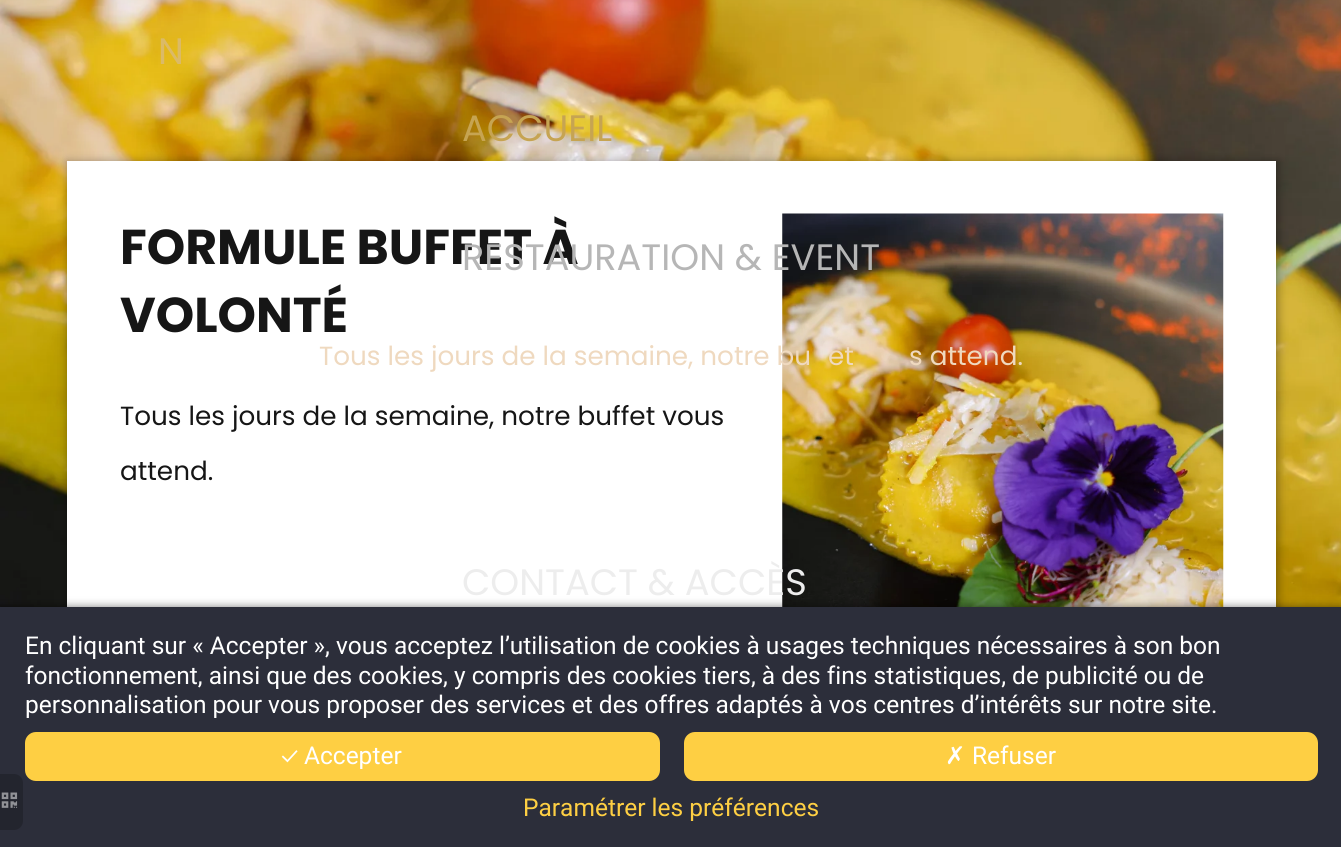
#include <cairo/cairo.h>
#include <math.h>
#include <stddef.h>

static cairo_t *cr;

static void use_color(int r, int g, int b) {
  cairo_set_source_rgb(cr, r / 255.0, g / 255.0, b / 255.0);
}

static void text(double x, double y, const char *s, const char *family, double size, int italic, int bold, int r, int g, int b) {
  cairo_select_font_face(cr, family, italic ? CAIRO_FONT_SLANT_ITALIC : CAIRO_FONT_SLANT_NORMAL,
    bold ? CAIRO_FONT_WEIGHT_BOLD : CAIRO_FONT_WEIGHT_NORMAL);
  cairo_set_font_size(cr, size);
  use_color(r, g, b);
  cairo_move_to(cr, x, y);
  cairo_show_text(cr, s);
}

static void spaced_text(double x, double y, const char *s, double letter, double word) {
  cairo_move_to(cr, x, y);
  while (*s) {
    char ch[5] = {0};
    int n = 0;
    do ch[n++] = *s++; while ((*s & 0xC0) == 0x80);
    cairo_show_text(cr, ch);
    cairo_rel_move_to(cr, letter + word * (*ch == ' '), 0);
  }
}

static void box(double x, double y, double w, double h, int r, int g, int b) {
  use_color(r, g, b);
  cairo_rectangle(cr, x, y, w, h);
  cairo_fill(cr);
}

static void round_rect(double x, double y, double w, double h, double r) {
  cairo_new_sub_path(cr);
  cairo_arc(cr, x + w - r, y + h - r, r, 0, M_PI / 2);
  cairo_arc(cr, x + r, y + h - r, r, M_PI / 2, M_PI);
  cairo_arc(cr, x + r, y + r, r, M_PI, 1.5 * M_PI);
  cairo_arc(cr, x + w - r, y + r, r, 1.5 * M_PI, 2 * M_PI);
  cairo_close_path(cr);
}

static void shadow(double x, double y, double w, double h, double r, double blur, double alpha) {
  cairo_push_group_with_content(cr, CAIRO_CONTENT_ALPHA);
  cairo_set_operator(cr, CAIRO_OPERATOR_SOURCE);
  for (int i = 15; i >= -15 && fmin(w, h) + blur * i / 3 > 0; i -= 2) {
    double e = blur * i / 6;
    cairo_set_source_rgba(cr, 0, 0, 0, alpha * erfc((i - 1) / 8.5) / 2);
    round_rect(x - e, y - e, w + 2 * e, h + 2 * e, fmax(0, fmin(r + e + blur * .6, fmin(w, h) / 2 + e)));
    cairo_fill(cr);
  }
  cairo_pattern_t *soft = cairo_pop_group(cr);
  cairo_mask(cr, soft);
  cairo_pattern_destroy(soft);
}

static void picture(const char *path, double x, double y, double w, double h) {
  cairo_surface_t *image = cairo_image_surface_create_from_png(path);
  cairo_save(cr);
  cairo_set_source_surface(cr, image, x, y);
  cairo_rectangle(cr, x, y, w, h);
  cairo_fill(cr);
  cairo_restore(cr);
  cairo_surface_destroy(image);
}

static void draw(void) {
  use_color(255, 255, 255);
  cairo_paint(cr);
  picture("img_01.png", 0, 0, 1341, 607);
  use_color(0, 0, 0);
  shadow(67, 161, 1212, 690, 0, 4.5, 0.3);
  box(67, 161, 1209, 446, 255, 255, 255);
  picture("img_02.png", 782, 213, 442, 394);
  use_color(0, 0, 0);
  shadow(0, 607, 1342, 240, 0, 4.5, 0.5);
  box(0, 607, 1341, 240, 44, 46, 58);
  use_color(35, 37, 46);
  cairo_new_path(cr);
  cairo_move_to(cr, 0, 774);
  cairo_line_to(cr, 14, 774);
  cairo_curve_to(cr, 19, 774, 23, 778, 23, 783);
  cairo_line_to(cr, 23, 821);
  cairo_curve_to(cr, 23, 826, 19, 830, 14, 830);
  cairo_line_to(cr, 0, 830);
  cairo_close_path(cr);
  cairo_fill(cr);
  picture("img_03.png", 1, 792, 17, 16);
  use_color(254, 207, 67);
  round_rect(25, 732, 635, 49, 11);
  cairo_fill(cr);
  round_rect(684, 732, 634, 49, 11);
  cairo_fill(cr);
  cairo_select_font_face(cr, "Poppins", CAIRO_FONT_SLANT_NORMAL, CAIRO_FONT_WEIGHT_NORMAL);
  cairo_set_font_size(cr, 36.75);
  use_color(219, 186, 103);
  spaced_text(158, 64, "N", 4, 0);
  text(462, 141, "ACCUEIL", "Poppins", 36.75, 0, 0, 198, 164, 82);
  text(462, 595, "CONTACT & ACCÈS", "Poppins", 36.75, 0, 0, 237, 237, 237);
  text(120, 264, "FORMULE BUFFET À", "Poppins", 48.9, 0, 1, 22, 22, 22);
  text(462, 270, "RESTAURATION & EVENT", "Poppins", 36.75, 0, 0, 182, 182, 182);
  text(120, 332, "VOLONTÉ", "Poppins", 48.9, 0, 1, 22, 22, 22);
  text(120, 425, "Tous les jours de la semaine, notre buffet vous", "Poppins", 26.25, 0, 0, 22, 22, 22);
  text(120, 480, "attend.", "Poppins", 26.25, 0, 0, 22, 22, 22);
  text(319, 365, "Tous les jours de la semaine, notre bu", "Poppins", 26.25, 0, 0, 239, 217, 191);
  text(828, 365, "et", "Poppins", 26.25, 0, 0, 239, 217, 191);
  text(909, 365, "s attend.", "Poppins", 26.25, 0, 0, 239, 217, 191);
  text(25, 654, "En cliquant sur « Accepter », vous acceptez l’utilisation de cookies à usages techniques nécessaires à son bon", "Roboto", 24.5, 0, 0, 255, 255, 255);
  text(25, 684, "fonctionnement, ainsi que des cookies, y compris des cookies tiers, à des fins statistiques, de publicité ou de", "Roboto", 24.5, 0, 0, 255, 255, 255);
  text(25, 713, "personnalisation pour vous proposer des services et des offres adaptés à vos centres d’intérêts sur notre site.", "Roboto", 24.5, 0, 0, 255, 255, 255);
  text(281, 764, "✓", "Ubuntu", 24.5, 0, 0, 255, 255, 255);
  text(304, 764, "Accepter", "Roboto", 24.5, 0, 0, 255, 255, 255);
  text(945, 764, "✗", "DejaVu Sans", 24.5, 0, 0, 255, 255, 255);
  text(972, 764, "Refuser", "Roboto", 24.5, 0, 0, 255, 255, 255);
  text(523, 816, "Paramétrer les préférences", "Roboto", 24.5, 0, 0, 254, 207, 67);
}

int main(void) {
  cairo_surface_t *surface = cairo_image_surface_create(CAIRO_FORMAT_RGB24, 1341, 847);
  cr = cairo_create(surface);
  cairo_font_options_t *options = cairo_font_options_create();
  cairo_font_options_set_hint_metrics(options, CAIRO_HINT_METRICS_OFF);
  cairo_font_options_set_hint_style(options, CAIRO_HINT_STYLE_NONE);
  cairo_set_font_options(cr, options);
  cairo_set_miter_limit(cr, 4);
  draw();
  cairo_surface_write_to_png(surface, "out.png");
  cairo_font_options_destroy(options);
  cairo_destroy(cr);
  cairo_surface_destroy(surface);
  return 0;
}
